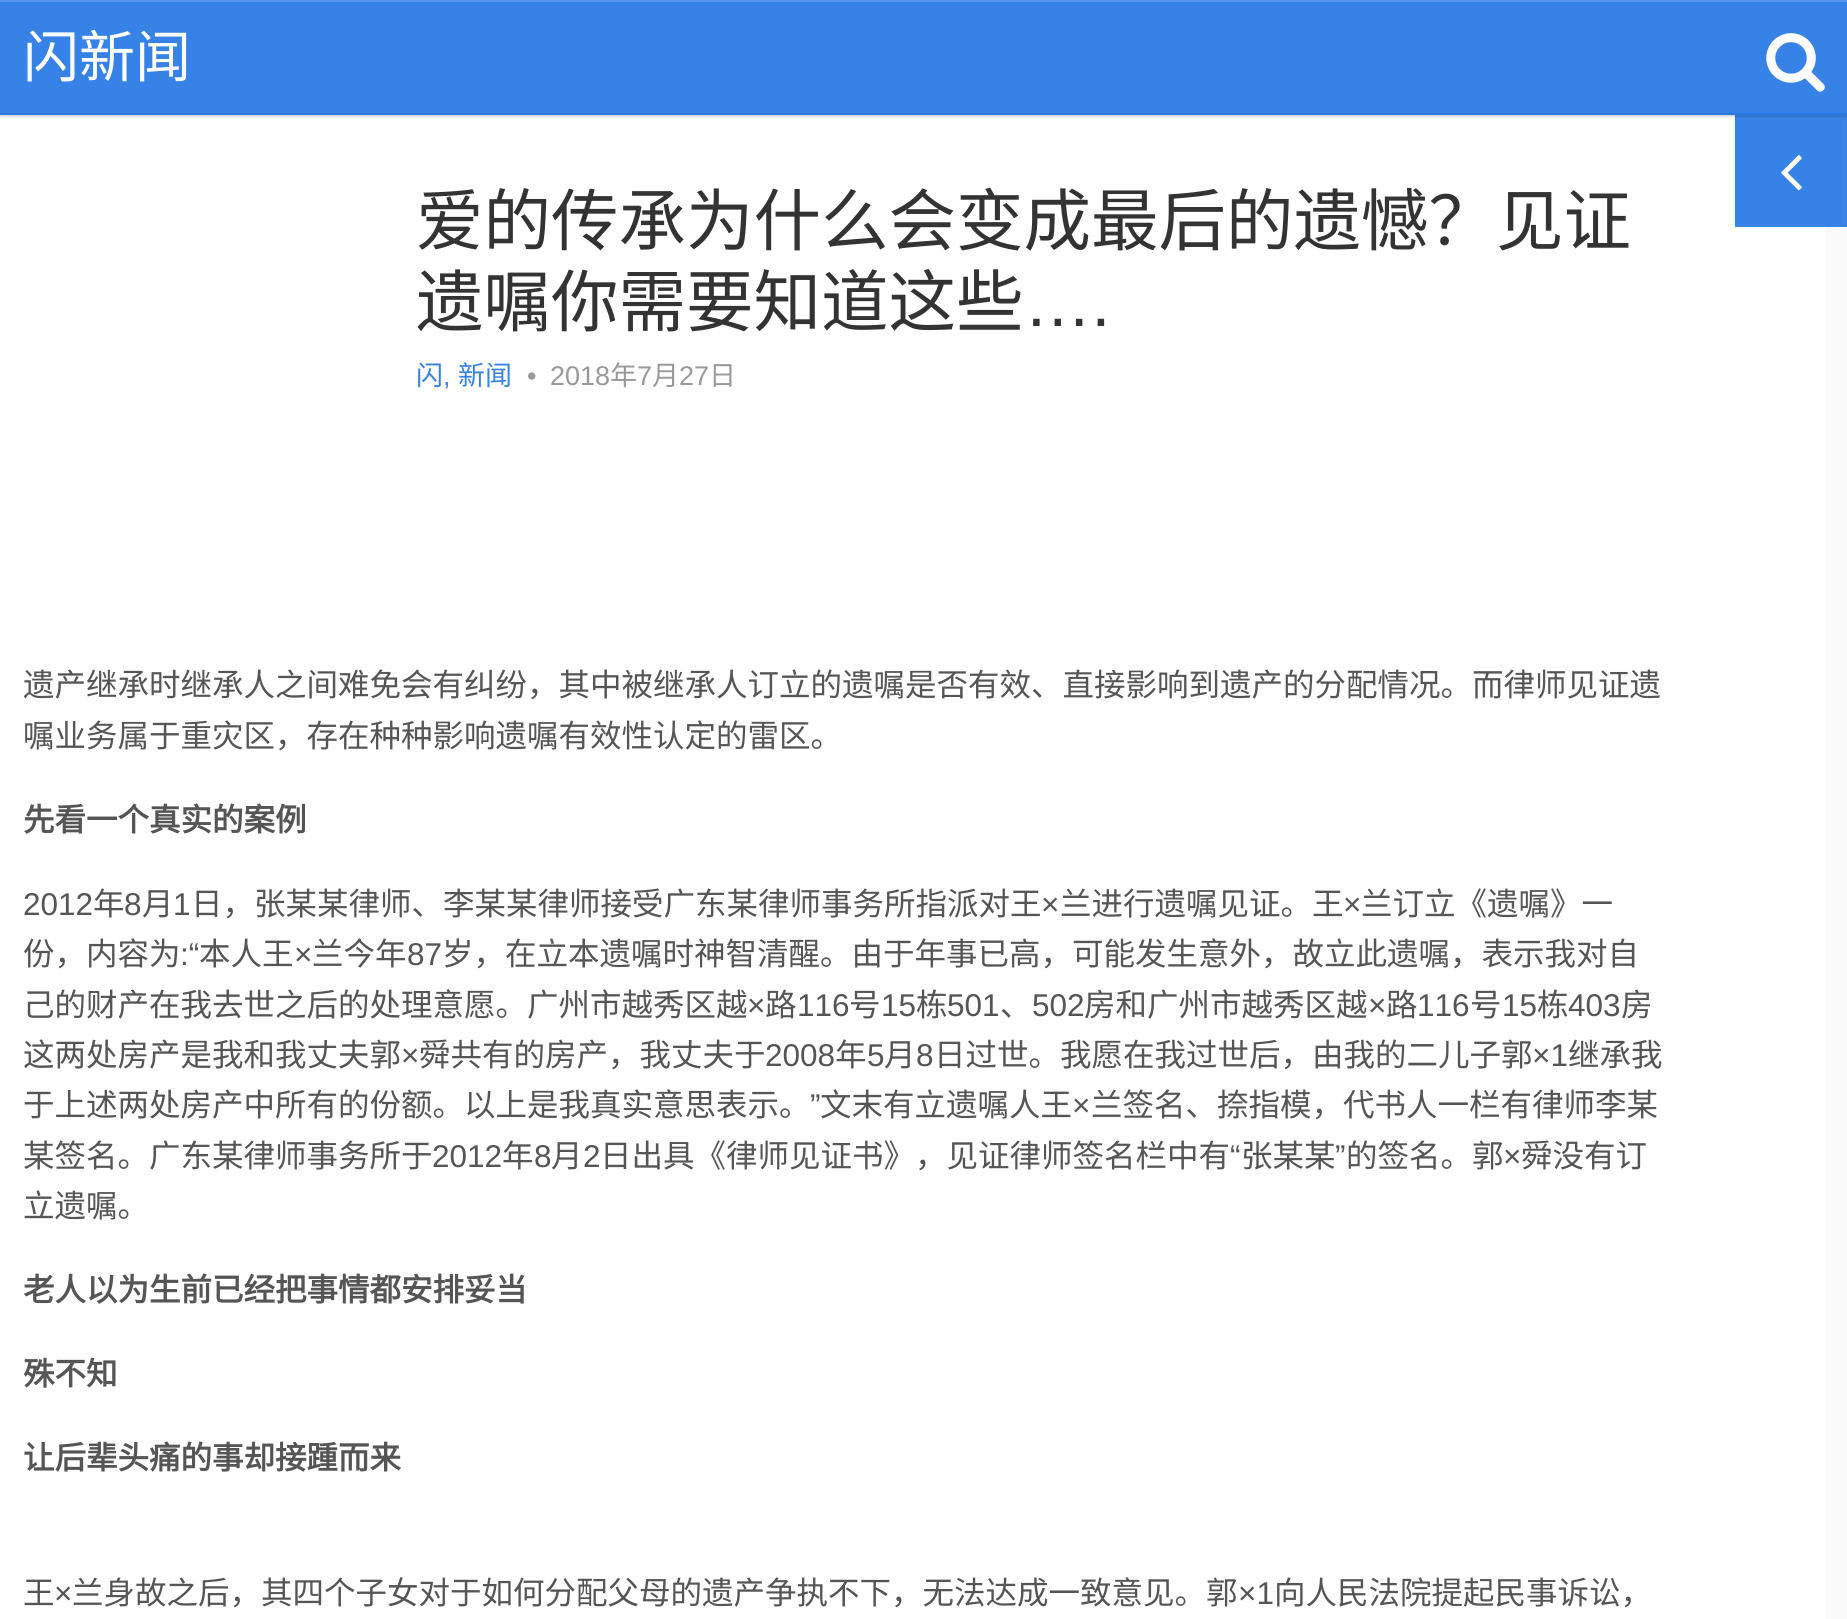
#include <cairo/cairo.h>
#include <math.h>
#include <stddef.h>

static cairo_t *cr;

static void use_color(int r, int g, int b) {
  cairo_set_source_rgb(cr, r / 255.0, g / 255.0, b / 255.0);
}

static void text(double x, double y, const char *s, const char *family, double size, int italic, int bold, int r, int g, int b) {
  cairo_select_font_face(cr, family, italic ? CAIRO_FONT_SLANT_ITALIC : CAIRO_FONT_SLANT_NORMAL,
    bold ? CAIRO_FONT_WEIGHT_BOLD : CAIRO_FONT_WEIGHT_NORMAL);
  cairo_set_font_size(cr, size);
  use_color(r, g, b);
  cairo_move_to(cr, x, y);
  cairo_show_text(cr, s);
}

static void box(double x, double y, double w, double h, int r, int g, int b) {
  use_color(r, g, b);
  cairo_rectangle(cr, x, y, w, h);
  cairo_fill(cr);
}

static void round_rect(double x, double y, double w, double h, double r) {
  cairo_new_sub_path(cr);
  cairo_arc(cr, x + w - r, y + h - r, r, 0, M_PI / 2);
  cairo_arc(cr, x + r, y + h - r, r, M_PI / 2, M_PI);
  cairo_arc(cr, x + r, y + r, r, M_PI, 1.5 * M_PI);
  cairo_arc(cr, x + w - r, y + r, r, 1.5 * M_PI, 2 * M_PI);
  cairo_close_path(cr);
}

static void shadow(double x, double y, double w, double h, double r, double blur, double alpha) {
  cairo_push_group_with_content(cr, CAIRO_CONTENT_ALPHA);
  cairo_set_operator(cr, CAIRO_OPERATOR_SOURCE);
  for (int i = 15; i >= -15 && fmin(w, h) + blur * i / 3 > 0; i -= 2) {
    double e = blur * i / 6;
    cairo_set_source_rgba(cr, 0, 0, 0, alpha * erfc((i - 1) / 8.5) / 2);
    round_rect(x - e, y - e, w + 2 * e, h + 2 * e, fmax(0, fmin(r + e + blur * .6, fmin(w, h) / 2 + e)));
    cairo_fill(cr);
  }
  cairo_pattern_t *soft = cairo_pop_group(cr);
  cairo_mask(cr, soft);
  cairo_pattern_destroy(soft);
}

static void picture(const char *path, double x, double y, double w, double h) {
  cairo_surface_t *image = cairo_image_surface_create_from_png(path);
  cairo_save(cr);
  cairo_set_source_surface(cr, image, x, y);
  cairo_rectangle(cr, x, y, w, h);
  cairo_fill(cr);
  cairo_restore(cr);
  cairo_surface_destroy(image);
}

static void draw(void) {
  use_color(255, 255, 255);
  cairo_paint(cr);
  box(1825, 227, 22, 1392, 250, 250, 250);
  box(1735, 115, 110, 112, 55, 130, 231);
  box(1845, 115, 2, 112, 60, 127, 218);
  use_color(0, 0, 0);
  shadow(0, 2, 1847, 115, 0, 1, 0.15);
  box(0, 2, 1847, 111, 55, 130, 231);
  box(0, 0, 1847, 2, 85, 149, 235);
  box(0, 113, 1847, 2, 41, 121, 229);
  picture("img_01.png", 1766, 33, 59, 59);
  picture("img_02.png", 1781, 155, 21, 36);
  text(23, 77, "闪新闻", "Noto Sans CJK SC", 56, 0, 0, 255, 255, 255);
  text(416, 245, "爱的传承为什么会变成最后的遗憾？见证", "Noto Sans CJK SC", 67.5, 0, 0, 51, 51, 51);
  text(416, 326, "遗嘱你需要知道这些", "Noto Sans CJK SC", 67.5, 0, 0, 51, 51, 51);
  text(1024, 326, "….", "Liberation Sans", 67.5, 0, 0, 51, 51, 51);
  text(416, 385, "闪", "Noto Sans CJK SC", 27, 0, 0, 55, 130, 231);
  text(458, 385, "新闻", "Noto Sans CJK SC", 27, 0, 0, 55, 130, 231);
  text(527, 385, "•", "Liberation Sans", 27, 0, 0, 153, 153, 153);
  text(550, 385, "2018", "Liberation Sans", 27, 0, 0, 153, 153, 153);
  text(610, 385, "年", "Noto Sans CJK SC", 27, 0, 0, 153, 153, 153);
  text(637, 385, "7", "Liberation Sans", 27, 0, 0, 153, 153, 153);
  text(652, 385, "月", "Noto Sans CJK SC", 27, 0, 0, 153, 153, 153);
  text(679, 385, "27", "Liberation Sans", 27, 0, 0, 153, 153, 153);
  text(709, 385, "日", "Noto Sans CJK SC", 27, 0, 0, 153, 153, 153);
  text(443, 385, ",", "Liberation Sans", 27, 0, 0, 55, 130, 231);
  text(23, 696, "遗产继承时继承人之间难免会有纠纷，其中被继承人订立的遗嘱是否有效、直接影响到遗产的分配情况。而律师见证遗", "Noto Sans CJK SC", 31.5, 0, 0, 85, 85, 85);
  text(23, 747, "嘱业务属于重灾区，存在种种影响遗嘱有效性认定的雷区。", "Noto Sans CJK SC", 31.5, 0, 0, 85, 85, 85);
  text(23, 831, "先看一个真实的案例", "Noto Sans CJK SC", 31.5, 0, 1, 85, 85, 85);
  text(23, 915, "2012", "Liberation Sans", 31.5, 0, 0, 85, 85, 85);
  text(93, 915, "年", "Noto Sans CJK SC", 31.5, 0, 0, 85, 85, 85);
  text(124, 915, "8", "Liberation Sans", 31.5, 0, 0, 85, 85, 85);
  text(142, 915, "月", "Noto Sans CJK SC", 31.5, 0, 0, 85, 85, 85);
  text(173, 915, "1", "Liberation Sans", 31.5, 0, 0, 85, 85, 85);
  text(191, 915, "日，张某某律师、李某某律师接受广东某律师事务所指派对王", "Noto Sans CJK SC", 31.5, 0, 0, 85, 85, 85);
  text(1041, 915, "×", "Liberation Sans", 31.5, 0, 0, 85, 85, 85);
  text(1060, 915, "兰进行遗嘱见证。王", "Noto Sans CJK SC", 31.5, 0, 0, 85, 85, 85);
  text(1343, 915, "×", "Liberation Sans", 31.5, 0, 0, 85, 85, 85);
  text(1361, 915, "兰订立《遗嘱》一", "Noto Sans CJK SC", 31.5, 0, 0, 85, 85, 85);
  text(23, 965, "份，内容为", "Noto Sans CJK SC", 31.5, 0, 0, 85, 85, 85);
  text(180, 965, ":“", "Liberation Sans", 31.5, 0, 0, 85, 85, 85);
  text(199, 965, "本人王", "Noto Sans CJK SC", 31.5, 0, 0, 85, 85, 85);
  text(294, 965, "×", "Liberation Sans", 31.5, 0, 0, 85, 85, 85);
  text(312, 965, "兰今年", "Noto Sans CJK SC", 31.5, 0, 0, 85, 85, 85);
  text(407, 965, "87", "Liberation Sans", 31.5, 0, 0, 85, 85, 85);
  text(442, 965, "岁，在立本遗嘱时神智清醒。由于年事已高，可能发生意外，故立此遗嘱，表示我对自", "Noto Sans CJK SC", 31.5, 0, 0, 85, 85, 85);
  text(23, 1016, "己的财产在我去世之后的处理意愿。广州市越秀区越", "Noto Sans CJK SC", 31.5, 0, 0, 85, 85, 85);
  text(747, 1016, "×", "Liberation Sans", 31.5, 0, 0, 85, 85, 85);
  text(765, 1016, "路", "Noto Sans CJK SC", 31.5, 0, 0, 85, 85, 85);
  text(797, 1016, "116", "Liberation Sans", 31.5, 0, 0, 85, 85, 85);
  text(849, 1016, "号", "Noto Sans CJK SC", 31.5, 0, 0, 85, 85, 85);
  text(881, 1016, "15", "Liberation Sans", 31.5, 0, 0, 85, 85, 85);
  text(916, 1016, "栋", "Noto Sans CJK SC", 31.5, 0, 0, 85, 85, 85);
  text(947, 1016, "501", "Liberation Sans", 31.5, 0, 0, 85, 85, 85);
  text(1000, 1016, "、", "Noto Sans CJK SC", 31.5, 0, 0, 85, 85, 85);
  text(1032, 1016, "502", "Liberation Sans", 31.5, 0, 0, 85, 85, 85);
  text(1084, 1016, "房和广州市越秀区越", "Noto Sans CJK SC", 31.5, 0, 0, 85, 85, 85);
  text(1368, 1016, "×", "Liberation Sans", 31.5, 0, 0, 85, 85, 85);
  text(1386, 1016, "路", "Noto Sans CJK SC", 31.5, 0, 0, 85, 85, 85);
  text(1417, 1016, "116", "Liberation Sans", 31.5, 0, 0, 85, 85, 85);
  text(1470, 1016, "号", "Noto Sans CJK SC", 31.5, 0, 0, 85, 85, 85);
  text(1502, 1016, "15", "Liberation Sans", 31.5, 0, 0, 85, 85, 85);
  text(1537, 1016, "栋", "Noto Sans CJK SC", 31.5, 0, 0, 85, 85, 85);
  text(1568, 1016, "403", "Liberation Sans", 31.5, 0, 0, 85, 85, 85);
  text(1621, 1016, "房", "Noto Sans CJK SC", 31.5, 0, 0, 85, 85, 85);
  text(23, 1066, "这两处房产是我和我丈夫郭", "Noto Sans CJK SC", 31.5, 0, 0, 85, 85, 85);
  text(401, 1066, "×", "Liberation Sans", 31.5, 0, 0, 85, 85, 85);
  text(419, 1066, "舜共有的房产，我丈夫于", "Noto Sans CJK SC", 31.5, 0, 0, 85, 85, 85);
  text(765, 1066, "2008", "Liberation Sans", 31.5, 0, 0, 85, 85, 85);
  text(835, 1066, "年", "Noto Sans CJK SC", 31.5, 0, 0, 85, 85, 85);
  text(867, 1066, "5", "Liberation Sans", 31.5, 0, 0, 85, 85, 85);
  text(884, 1066, "月", "Noto Sans CJK SC", 31.5, 0, 0, 85, 85, 85);
  text(916, 1066, "8", "Liberation Sans", 31.5, 0, 0, 85, 85, 85);
  text(934, 1066, "日过世。我愿在我过世后，由我的二儿子郭", "Noto Sans CJK SC", 31.5, 0, 0, 85, 85, 85);
  text(1532, 1066, "×1", "Liberation Sans", 31.5, 0, 0, 85, 85, 85);
  text(1568, 1066, "继承我", "Noto Sans CJK SC", 31.5, 0, 0, 85, 85, 85);
  text(23, 1116, "于上述两处房产中所有的份额。以上是我真实意思表示。", "Noto Sans CJK SC", 31.5, 0, 0, 85, 85, 85);
  text(810, 1116, "”", "Liberation Sans", 31.5, 0, 0, 85, 85, 85);
  text(820, 1116, "文末有立遗嘱人王", "Noto Sans CJK SC", 31.5, 0, 0, 85, 85, 85);
  text(1072, 1116, "×", "Liberation Sans", 31.5, 0, 0, 85, 85, 85);
  text(1091, 1116, "兰签名、捺指模，代书人一栏有律师李某", "Noto Sans CJK SC", 31.5, 0, 0, 85, 85, 85);
  text(23, 1167, "某签名。广东某律师事务所于", "Noto Sans CJK SC", 31.5, 0, 0, 85, 85, 85);
  text(432, 1167, "2012", "Liberation Sans", 31.5, 0, 0, 85, 85, 85);
  text(502, 1167, "年", "Noto Sans CJK SC", 31.5, 0, 0, 85, 85, 85);
  text(534, 1167, "8", "Liberation Sans", 31.5, 0, 0, 85, 85, 85);
  text(551, 1167, "月", "Noto Sans CJK SC", 31.5, 0, 0, 85, 85, 85);
  text(583, 1167, "2", "Liberation Sans", 31.5, 0, 0, 85, 85, 85);
  text(600, 1167, "日出具《律师见证书》，见证律师签名栏中有", "Noto Sans CJK SC", 31.5, 0, 0, 85, 85, 85);
  text(1230, 1167, "“", "Liberation Sans", 31.5, 0, 0, 85, 85, 85);
  text(1241, 1167, "张某某", "Noto Sans CJK SC", 31.5, 0, 0, 85, 85, 85);
  text(1335, 1167, "”", "Liberation Sans", 31.5, 0, 0, 85, 85, 85);
  text(1346, 1167, "的签名。郭", "Noto Sans CJK SC", 31.5, 0, 0, 85, 85, 85);
  text(1503, 1167, "×", "Liberation Sans", 31.5, 0, 0, 85, 85, 85);
  text(1521, 1167, "舜没有订", "Noto Sans CJK SC", 31.5, 0, 0, 85, 85, 85);
  text(23, 1217, "立遗嘱。", "Noto Sans CJK SC", 31.5, 0, 0, 85, 85, 85);
  text(23, 1301, "老人以为生前已经把事情都安排妥当", "Noto Sans CJK SC", 31.5, 0, 1, 85, 85, 85);
  text(23, 1385, "殊不知", "Noto Sans CJK SC", 31.5, 0, 1, 85, 85, 85);
  text(23, 1469, "让后辈头痛的事却接踵而来", "Noto Sans CJK SC", 31.5, 0, 1, 85, 85, 85);
  text(23, 1604, "王", "Noto Sans CJK SC", 31.5, 0, 0, 85, 85, 85);
  text(54, 1604, "×", "Liberation Sans", 31.5, 0, 0, 85, 85, 85);
  text(72, 1604, "兰身故之后，其四个子女对于如何分配父母的遗产争执不下，无法达成一致意见。郭", "Noto Sans CJK SC", 31.5, 0, 0, 85, 85, 85);
  text(1238, 1604, "×1", "Liberation Sans", 31.5, 0, 0, 85, 85, 85);
  text(1274, 1604, "向人民法院提起民事诉讼，", "Noto Sans CJK SC", 31.5, 0, 0, 85, 85, 85);
}

int main(void) {
  cairo_surface_t *surface = cairo_image_surface_create(CAIRO_FORMAT_RGB24, 1847, 1619);
  cr = cairo_create(surface);
  cairo_font_options_t *options = cairo_font_options_create();
  cairo_font_options_set_hint_metrics(options, CAIRO_HINT_METRICS_OFF);
  cairo_font_options_set_hint_style(options, CAIRO_HINT_STYLE_NONE);
  cairo_set_font_options(cr, options);
  cairo_set_miter_limit(cr, 4);
  draw();
  cairo_surface_write_to_png(surface, "out.png");
  cairo_font_options_destroy(options);
  cairo_destroy(cr);
  cairo_surface_destroy(surface);
  return 0;
}
